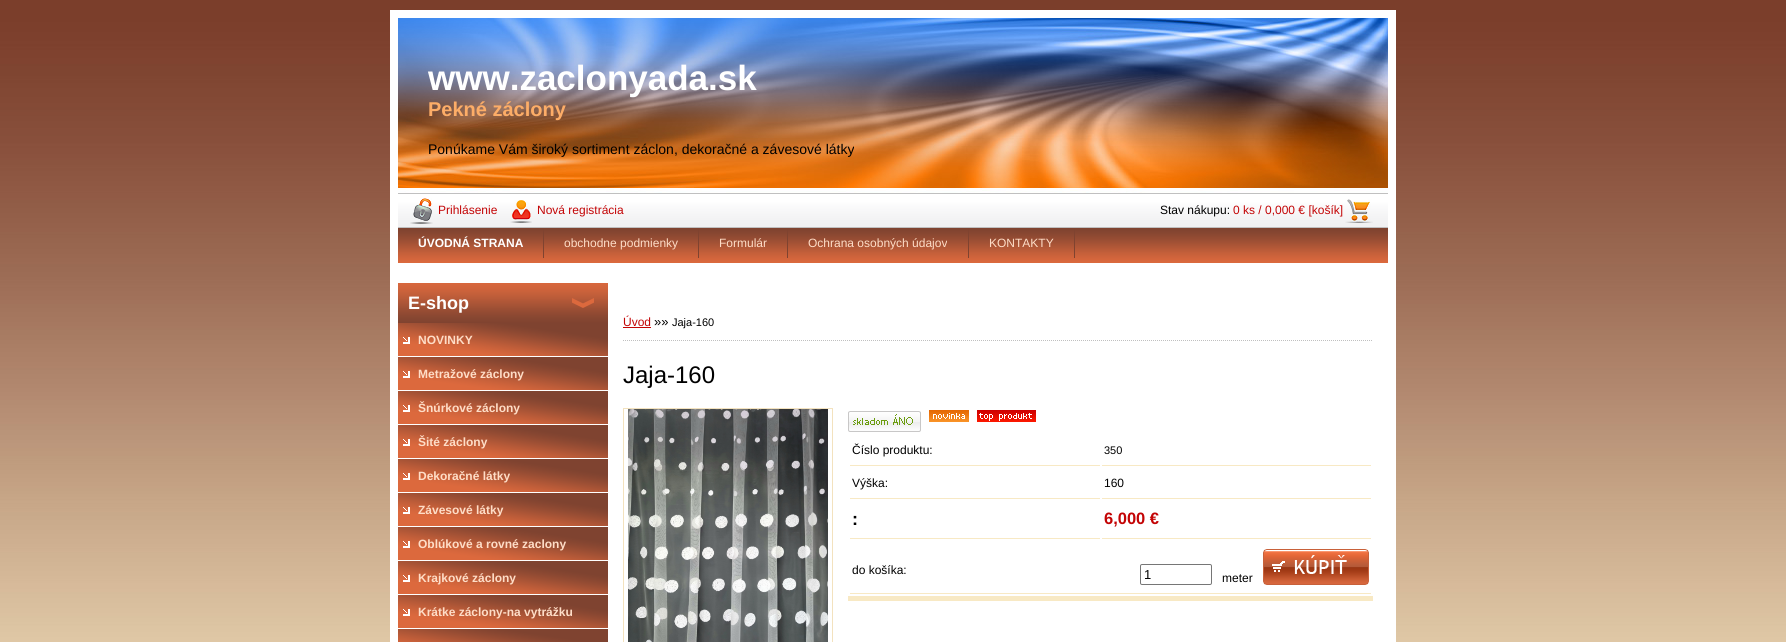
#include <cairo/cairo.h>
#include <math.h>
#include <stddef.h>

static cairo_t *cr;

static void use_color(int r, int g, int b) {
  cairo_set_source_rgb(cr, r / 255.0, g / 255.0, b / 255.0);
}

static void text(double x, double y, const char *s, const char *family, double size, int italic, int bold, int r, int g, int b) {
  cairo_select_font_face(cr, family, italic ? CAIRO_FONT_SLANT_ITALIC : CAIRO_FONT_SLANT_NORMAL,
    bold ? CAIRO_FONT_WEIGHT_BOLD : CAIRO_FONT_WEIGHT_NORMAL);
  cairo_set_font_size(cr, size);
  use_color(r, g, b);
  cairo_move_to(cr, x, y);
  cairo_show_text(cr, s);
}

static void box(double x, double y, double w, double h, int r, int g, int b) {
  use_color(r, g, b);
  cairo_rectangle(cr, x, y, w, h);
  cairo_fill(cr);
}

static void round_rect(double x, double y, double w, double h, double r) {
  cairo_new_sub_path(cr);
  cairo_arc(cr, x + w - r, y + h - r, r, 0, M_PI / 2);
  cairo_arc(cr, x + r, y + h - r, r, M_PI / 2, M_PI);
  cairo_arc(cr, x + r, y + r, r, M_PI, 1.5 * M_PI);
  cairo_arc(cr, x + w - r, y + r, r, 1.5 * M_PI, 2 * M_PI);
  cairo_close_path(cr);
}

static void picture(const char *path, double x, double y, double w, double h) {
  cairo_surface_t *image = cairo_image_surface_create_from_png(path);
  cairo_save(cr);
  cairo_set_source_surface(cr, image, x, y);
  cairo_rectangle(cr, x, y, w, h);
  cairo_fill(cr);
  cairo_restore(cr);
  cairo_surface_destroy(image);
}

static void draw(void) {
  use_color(255, 255, 255);
  cairo_paint(cr);
  picture("img_01.png", 0, 0, 1786, 642);
  box(390, 10, 1006, 632, 255, 255, 255);
  picture("img_02.png", 398, 18, 990, 175);
  box(398, 193, 990, 35, 192, 192, 192);
  picture("img_03.png", 398, 194, 990, 33);
  picture("img_04.png", 410, 198, 23, 26);
  picture("img_05.png", 510, 200, 22, 23);
  picture("img_06.png", 1345, 199, 28, 24);
  picture("img_07.png", 398, 228, 990, 35);
  box(543, 228, 1, 30, 127, 67, 48);
  box(698, 228, 1, 30, 127, 67, 48);
  box(787, 228, 1, 30, 127, 67, 48);
  box(968, 228, 1, 30, 127, 67, 48);
  box(1074, 228, 1, 30, 127, 67, 48);
  picture("img_08.png", 398, 283, 210, 40);
  picture("img_09.png", 398, 323, 210, 33);
  picture("img_09.png", 398, 357, 210, 33);
  picture("img_09.png", 398, 391, 210, 33);
  picture("img_09.png", 398, 425, 210, 33);
  picture("img_09.png", 398, 459, 210, 33);
  picture("img_09.png", 398, 493, 210, 33);
  picture("img_09.png", 398, 527, 210, 33);
  picture("img_09.png", 398, 561, 210, 33);
  picture("img_09.png", 398, 595, 210, 33);
  picture("img_10.png", 398, 629, 210, 13);
  cairo_new_path(cr);
  cairo_move_to(cr, 623, 340.5);
  cairo_line_to(cr, 1373, 340.5);
  use_color(192, 192, 192);
  cairo_set_line_width(cr, 1);
  cairo_set_dash(cr, (double[]){1, 1}, 2, 0);
  cairo_stroke(cr);
  box(623, 327, 28, 1, 195, 4, 5);
  cairo_rectangle(cr, 623.5, 408.5, 209, 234);
  use_color(243, 226, 190);
  cairo_set_dash(cr, NULL, 0, 0);
  cairo_stroke(cr);
  picture("img_11.png", 628, 409, 200, 233);
  picture("img_12.png", 848, 411, 73, 21);
  picture("img_13.png", 929, 410, 40, 12);
  picture("img_14.png", 977, 410, 59, 12);
  box(848, 596, 525, 5, 248, 233, 196);
  box(850, 465, 250, 1, 248, 233, 196);
  box(1102, 465, 269, 1, 248, 233, 196);
  box(850, 498, 250, 1, 248, 233, 196);
  box(1102, 498, 269, 1, 248, 233, 196);
  box(850, 538, 250, 1, 248, 233, 196);
  box(1102, 538, 269, 1, 248, 233, 196);
  box(850, 593, 521, 1, 248, 233, 196);
  round_rect(1140.5, 564.5, 71, 20, 1.5);
  use_color(118, 118, 118);
  cairo_stroke(cr);
  picture("img_15.png", 1263, 549, 106, 36);
  text(428, 90, "www.zaclonyada.sk", "Liberation Sans", 35, 0, 1, 255, 255, 255);
  text(428, 116, "Pekné záclony", "Liberation Sans", 20, 0, 1, 253, 173, 103);
  text(428, 154, "Ponúkame Vám široký sortiment záclon, dekoračné a závesové látky", "Liberation Sans", 14, 0, 0, 0, 0, 0);
  text(438, 214, "Prihlásenie", "Liberation Sans", 12, 0, 0, 195, 4, 5);
  text(537, 214, "Nová registrácia", "Liberation Sans", 12, 0, 0, 195, 4, 5);
  text(1160, 214, "Stav nákupu:", "Liberation Sans", 12, 0, 0, 0, 0, 0);
  text(1233, 214, "0 ks / 0,000 € [košík]", "Liberation Sans", 12, 0, 0, 195, 4, 5);
  text(418, 247, "ÚVODNÁ STRANA", "Liberation Sans", 12, 0, 1, 255, 255, 255);
  text(564, 247, "obchodne podmienky", "Liberation Sans", 12, 0, 0, 254, 221, 199);
  text(719, 247, "Formulár", "Liberation Sans", 12, 0, 0, 254, 221, 199);
  text(808, 247, "Ochrana osobných údajov", "Liberation Sans", 12, 0, 0, 254, 221, 199);
  text(989, 247, "KONTAKTY", "Liberation Sans", 12, 0, 0, 254, 221, 199);
  text(408, 309, "E-shop", "Liberation Sans", 18, 0, 1, 255, 255, 255);
  text(418, 344, "NOVINKY", "Liberation Sans", 12, 0, 1, 254, 221, 199);
  text(418, 378, "Metražové záclony", "Liberation Sans", 12, 0, 1, 254, 221, 199);
  text(418, 412, "Šnúrkové záclony", "Liberation Sans", 12, 0, 1, 254, 221, 199);
  text(418, 446, "Šité záclony", "Liberation Sans", 12, 0, 1, 254, 221, 199);
  text(418, 480, "Dekoračné látky", "Liberation Sans", 12, 0, 1, 254, 221, 199);
  text(418, 514, "Závesové látky", "Liberation Sans", 12, 0, 1, 254, 221, 199);
  text(418, 548, "Oblúkové a rovné zaclony", "Liberation Sans", 12, 0, 1, 254, 221, 199);
  text(418, 582, "Krajkové záclony", "Liberation Sans", 12, 0, 1, 254, 221, 199);
  text(418, 616, "Krátke záclony-na vytrážku", "Liberation Sans", 12, 0, 1, 254, 221, 199);
  text(623, 326, "Úvod", "Liberation Sans", 12, 0, 0, 195, 4, 5);
  text(654, 326, "»»", "Liberation Sans", 13, 0, 0, 0, 0, 0);
  text(672, 326, "Jaja-160", "Liberation Sans", 11, 0, 0, 0, 0, 0);
  text(623, 383, "Jaja-160", "Liberation Sans", 24, 0, 0, 0, 0, 0);
  text(852, 454, "Číslo produktu:", "Liberation Sans", 12, 0, 0, 0, 0, 0);
  text(1104, 454, "350", "Liberation Sans", 11, 0, 0, 0, 0, 0);
  text(852, 487, "Výška:", "Liberation Sans", 12, 0, 0, 0, 0, 0);
  text(1104, 487, "160", "Liberation Sans", 12, 0, 0, 0, 0, 0);
  text(852, 525, ":", "Liberation Sans", 18, 0, 1, 0, 0, 0);
  text(1104, 524, "6,000 €", "Liberation Sans", 16.5, 0, 1, 195, 4, 5);
  text(852, 574, "do košíka:", "Liberation Sans", 12, 0, 0, 0, 0, 0);
  text(1144, 579, "1", "Liberation Sans", 13, 0, 0, 0, 0, 0);
  text(1222, 582, "meter", "Liberation Sans", 12, 0, 0, 0, 0, 0);
}

int main(void) {
  cairo_surface_t *surface = cairo_image_surface_create(CAIRO_FORMAT_RGB24, 1786, 642);
  cr = cairo_create(surface);
  cairo_font_options_t *options = cairo_font_options_create();
  cairo_font_options_set_hint_metrics(options, CAIRO_HINT_METRICS_OFF);
  cairo_font_options_set_hint_style(options, CAIRO_HINT_STYLE_NONE);
  cairo_set_font_options(cr, options);
  cairo_set_miter_limit(cr, 4);
  draw();
  cairo_surface_write_to_png(surface, "out.png");
  cairo_font_options_destroy(options);
  cairo_destroy(cr);
  cairo_surface_destroy(surface);
  return 0;
}
